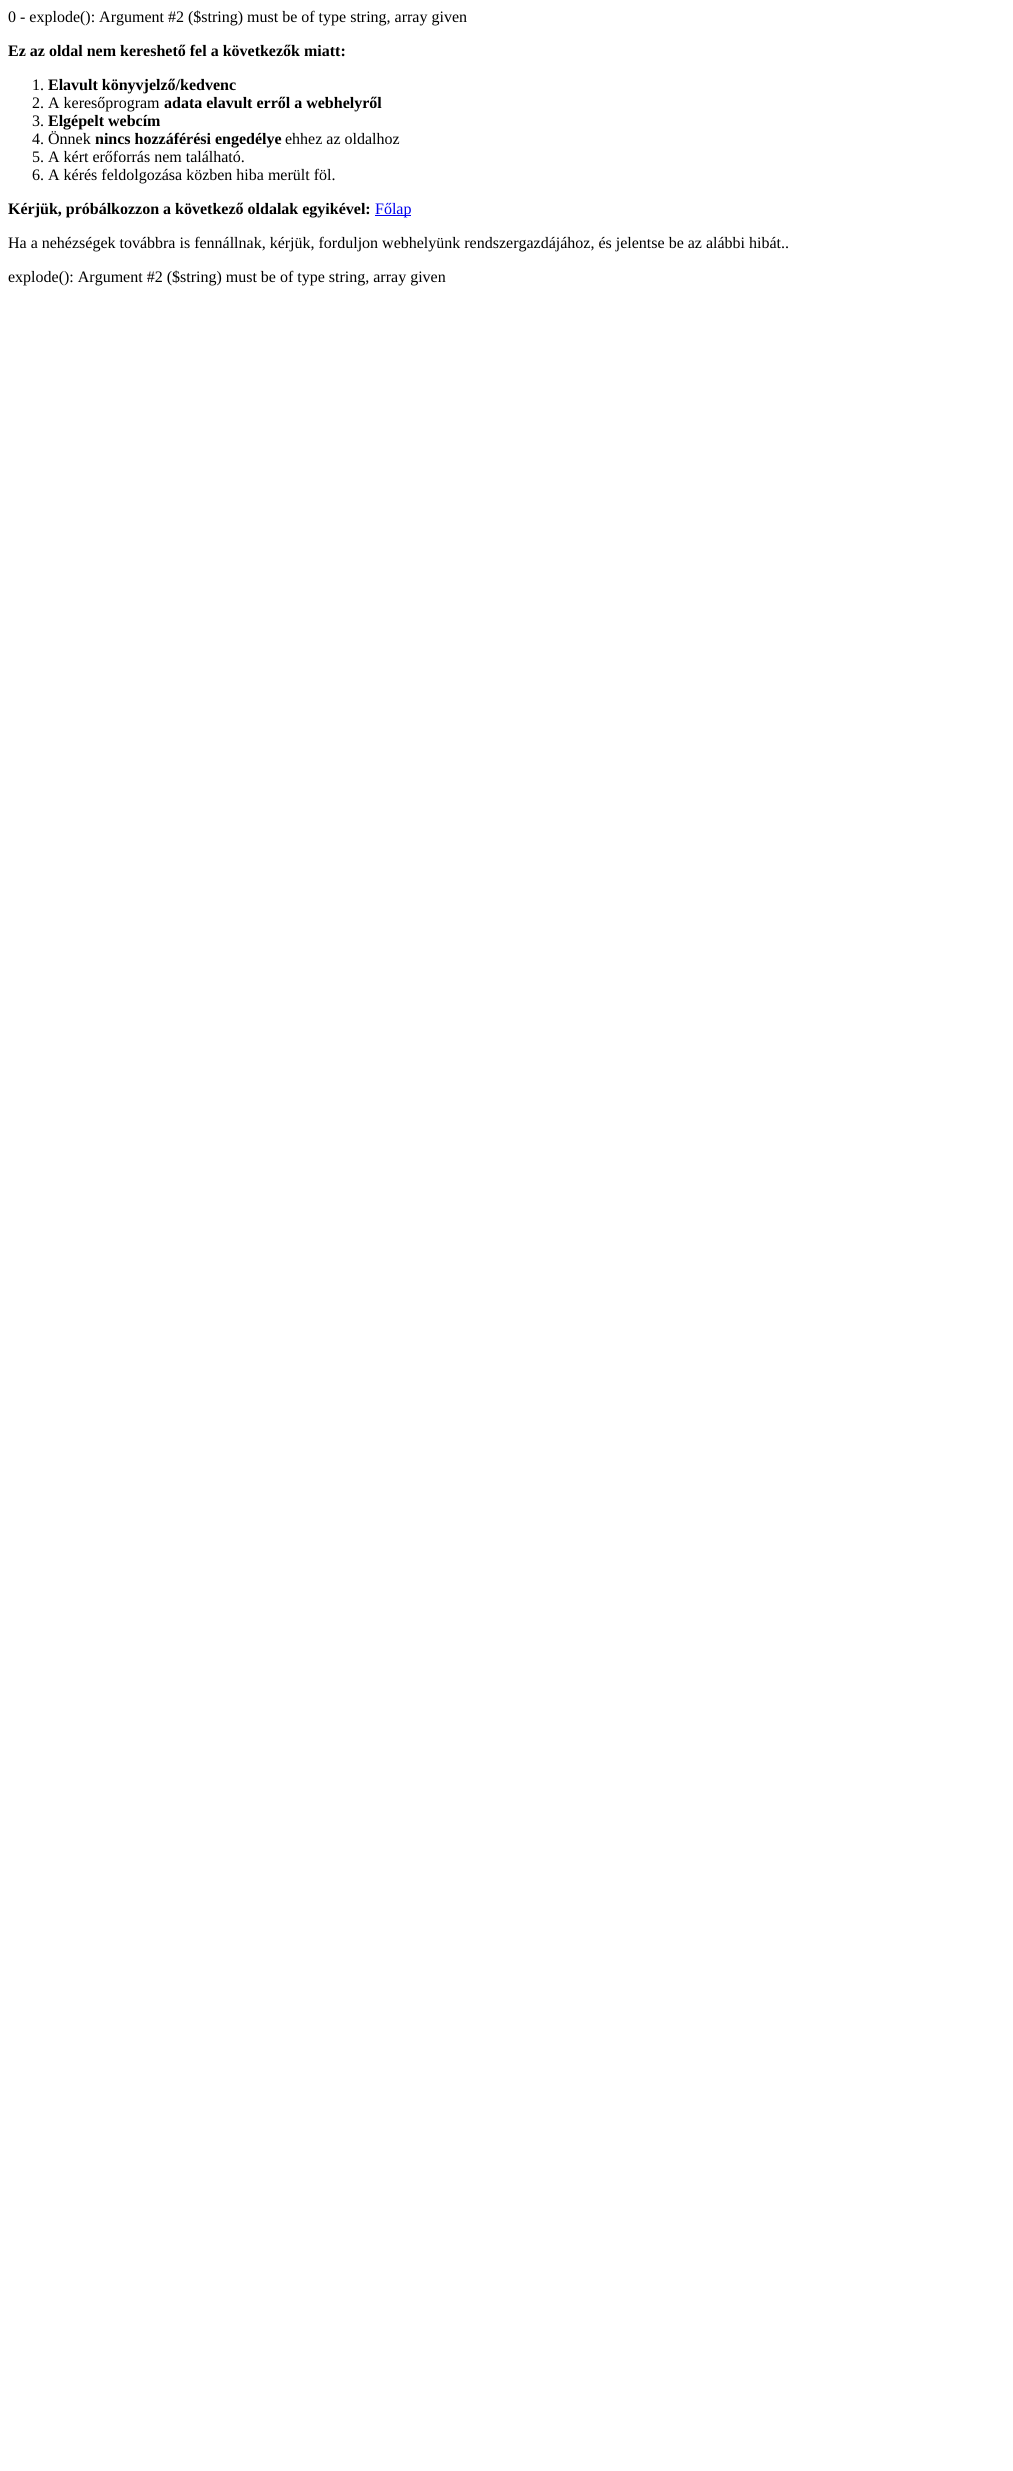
#include <cairo/cairo.h>
#include <math.h>
#include <stddef.h>

static cairo_t *cr;

static void use_color(int r, int g, int b) {
  cairo_set_source_rgb(cr, r / 255.0, g / 255.0, b / 255.0);
}

static void text(double x, double y, const char *s, const char *family, double size, int italic, int bold, int r, int g, int b) {
  cairo_select_font_face(cr, family, italic ? CAIRO_FONT_SLANT_ITALIC : CAIRO_FONT_SLANT_NORMAL,
    bold ? CAIRO_FONT_WEIGHT_BOLD : CAIRO_FONT_WEIGHT_NORMAL);
  cairo_set_font_size(cr, size);
  use_color(r, g, b);
  cairo_move_to(cr, x, y);
  cairo_show_text(cr, s);
}

static void box(double x, double y, double w, double h, int r, int g, int b) {
  use_color(r, g, b);
  cairo_rectangle(cr, x, y, w, h);
  cairo_fill(cr);
}

static void draw(void) {
  use_color(255, 255, 255);
  cairo_paint(cr);
  box(375, 215, 36, 1, 0, 0, 238);
  text(8, 22, "0 - explode(): Argument #2 ($string) must be of type string, array given", "Liberation Serif", 16, 0, 0, 0, 0, 0);
  text(8, 56, "Ez az oldal nem kereshető fel a következők miatt:", "Liberation Serif", 16, 0, 1, 0, 0, 0);
  text(32, 90, "1.", "Liberation Serif", 16, 0, 0, 0, 0, 0);
  text(48, 90, "Elavult könyvjelző/kedvenc", "Liberation Serif", 16, 0, 1, 0, 0, 0);
  text(32, 108, "2. A keresőprogram", "Liberation Serif", 16, 0, 0, 0, 0, 0);
  text(164, 108, "adata elavult erről a webhelyről", "Liberation Serif", 16, 0, 1, 0, 0, 0);
  text(32, 126, "3.", "Liberation Serif", 16, 0, 0, 0, 0, 0);
  text(48, 126, "Elgépelt webcím", "Liberation Serif", 16, 0, 1, 0, 0, 0);
  text(32, 144, "4. Önnek", "Liberation Serif", 16, 0, 0, 0, 0, 0);
  text(95, 144, "nincs hozzáférési engedélye", "Liberation Serif", 16, 0, 1, 0, 0, 0);
  text(285, 144, "ehhez az oldalhoz", "Liberation Serif", 16, 0, 0, 0, 0, 0);
  text(32, 162, "5. A kért erőforrás nem található.", "Liberation Serif", 16, 0, 0, 0, 0, 0);
  text(32, 180, "6. A kérés feldolgozása közben hiba merült föl.", "Liberation Serif", 16, 0, 0, 0, 0, 0);
  text(8, 214, "Kérjük, próbálkozzon a következő oldalak egyikével:", "Liberation Serif", 16, 0, 1, 0, 0, 0);
  text(375, 214, "Főlap", "Liberation Serif", 16, 0, 0, 0, 0, 238);
  text(8, 248, "Ha a nehézségek továbbra is fennállnak, kérjük, forduljon webhelyünk rendszergazdájához, és jelentse be az alábbi hibát..", "Liberation Serif", 16, 0, 0, 0, 0, 0);
  text(8, 282, "explode(): Argument #2 ($string) must be of type string, array given", "Liberation Serif", 16, 0, 0, 0, 0, 0);
}

int main(void) {
  cairo_surface_t *surface = cairo_image_surface_create(CAIRO_FORMAT_RGB24, 1013, 2471);
  cr = cairo_create(surface);
  cairo_font_options_t *options = cairo_font_options_create();
  cairo_font_options_set_hint_metrics(options, CAIRO_HINT_METRICS_OFF);
  cairo_font_options_set_hint_style(options, CAIRO_HINT_STYLE_NONE);
  cairo_set_font_options(cr, options);
  cairo_set_miter_limit(cr, 4);
  draw();
  cairo_surface_write_to_png(surface, "out.png");
  cairo_font_options_destroy(options);
  cairo_destroy(cr);
  cairo_surface_destroy(surface);
  return 0;
}
